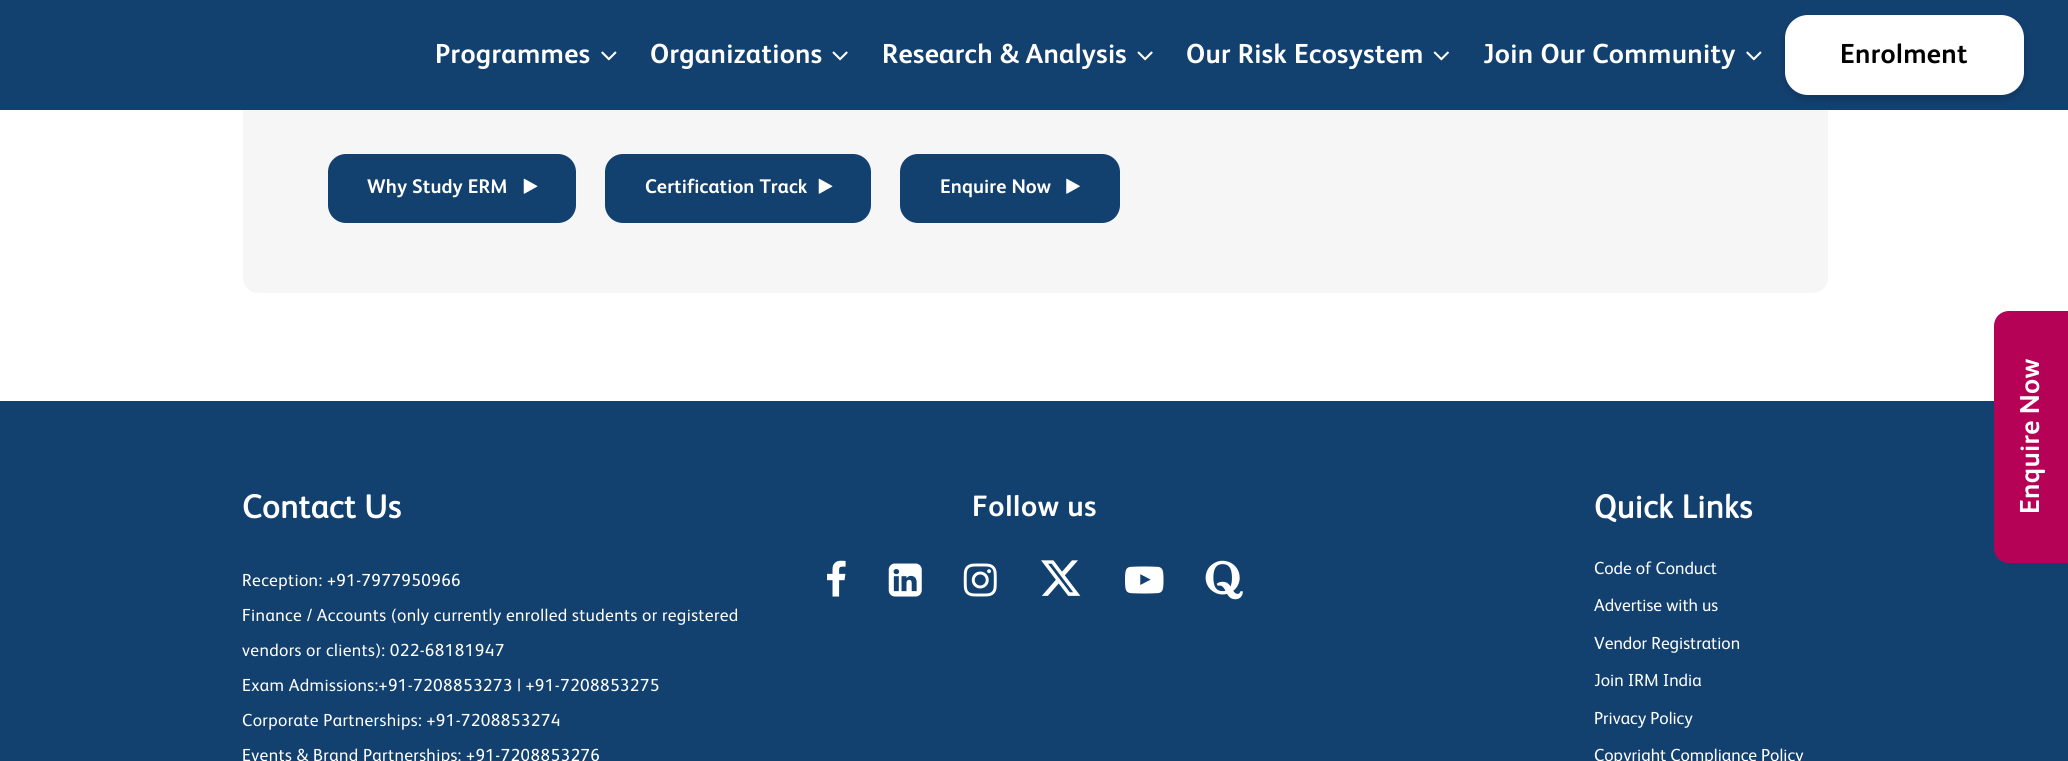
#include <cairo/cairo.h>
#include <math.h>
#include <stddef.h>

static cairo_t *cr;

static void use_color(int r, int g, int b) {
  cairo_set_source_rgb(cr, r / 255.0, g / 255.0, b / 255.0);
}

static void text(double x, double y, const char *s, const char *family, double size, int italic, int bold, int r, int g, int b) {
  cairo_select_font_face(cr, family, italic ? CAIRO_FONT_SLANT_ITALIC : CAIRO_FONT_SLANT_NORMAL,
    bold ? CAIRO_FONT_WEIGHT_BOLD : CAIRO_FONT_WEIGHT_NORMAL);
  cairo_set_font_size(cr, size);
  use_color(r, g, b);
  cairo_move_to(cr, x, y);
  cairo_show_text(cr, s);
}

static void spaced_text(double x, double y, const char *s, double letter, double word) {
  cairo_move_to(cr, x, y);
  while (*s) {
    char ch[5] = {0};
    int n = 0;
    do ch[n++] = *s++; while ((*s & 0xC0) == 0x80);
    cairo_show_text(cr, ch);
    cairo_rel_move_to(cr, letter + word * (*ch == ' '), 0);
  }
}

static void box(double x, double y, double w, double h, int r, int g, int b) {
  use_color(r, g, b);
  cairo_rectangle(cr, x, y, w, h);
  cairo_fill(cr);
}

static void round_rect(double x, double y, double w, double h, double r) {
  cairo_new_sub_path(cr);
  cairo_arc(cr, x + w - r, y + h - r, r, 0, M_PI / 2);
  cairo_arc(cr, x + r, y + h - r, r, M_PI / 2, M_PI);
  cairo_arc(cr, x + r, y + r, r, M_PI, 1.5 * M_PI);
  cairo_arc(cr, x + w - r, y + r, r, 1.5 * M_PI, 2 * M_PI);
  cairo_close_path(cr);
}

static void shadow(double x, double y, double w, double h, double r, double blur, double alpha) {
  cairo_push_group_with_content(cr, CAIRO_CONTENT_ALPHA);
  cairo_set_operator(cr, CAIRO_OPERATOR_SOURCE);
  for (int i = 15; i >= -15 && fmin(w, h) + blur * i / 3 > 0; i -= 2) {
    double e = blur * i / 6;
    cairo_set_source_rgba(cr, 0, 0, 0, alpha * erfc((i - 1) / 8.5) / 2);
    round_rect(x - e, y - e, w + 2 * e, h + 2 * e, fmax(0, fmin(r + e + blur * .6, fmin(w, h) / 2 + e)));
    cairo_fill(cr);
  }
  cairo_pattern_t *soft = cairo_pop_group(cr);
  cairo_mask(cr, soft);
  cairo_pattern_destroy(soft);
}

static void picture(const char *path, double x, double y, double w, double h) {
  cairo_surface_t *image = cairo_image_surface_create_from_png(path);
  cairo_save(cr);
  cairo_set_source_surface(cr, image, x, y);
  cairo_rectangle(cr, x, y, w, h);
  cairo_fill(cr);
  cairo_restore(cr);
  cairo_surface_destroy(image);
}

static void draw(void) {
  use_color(255, 255, 255);
  cairo_paint(cr);
  use_color(246, 246, 246);
  round_rect(243, -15, 1585, 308, 15);
  cairo_fill(cr);
  box(0, 0, 2068, 110, 18, 64, 111);
  picture("img_01.png", 601, 51, 16, 10);
  picture("img_02.png", 832, 51, 16, 10);
  picture("img_02.png", 1137, 51, 16, 10);
  picture("img_03.png", 1433, 51, 16, 10);
  picture("img_01.png", 1746, 51, 16, 10);
  use_color(0, 0, 0);
  shadow(1785, 19, 239, 80, 23, 4, 0.16);
  use_color(255, 255, 255);
  round_rect(1785, 15, 239, 80, 23);
  cairo_fill(cr);
  use_color(18, 64, 111);
  round_rect(328, 154, 248, 69, 18);
  cairo_fill(cr);
  picture("img_04.png", 523, 178, 15, 16);
  round_rect(605, 154, 266, 69, 18);
  cairo_fill(cr);
  picture("img_04.png", 818, 178, 15, 16);
  round_rect(900, 154, 220, 69, 18);
  cairo_fill(cr);
  picture("img_05.png", 1066, 178, 14, 16);
  box(0, 401, 2068, 360, 18, 64, 111);
  use_color(181, 1, 86);
  cairo_new_path(cr);
  cairo_move_to(cr, 2009, 311);
  cairo_line_to(cr, 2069, 311);
  cairo_line_to(cr, 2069, 563);
  cairo_line_to(cr, 2009, 563);
  cairo_curve_to(cr, 2000.5, 563, 1994, 556.5, 1994, 548);
  cairo_line_to(cr, 1994, 326);
  cairo_curve_to(cr, 1994, 317.5, 2000.5, 311, 2009, 311);
  cairo_close_path(cr);
  cairo_fill(cr);
  picture("img_06.png", 827, 560, 19, 37);
  picture("img_07.png", 888, 563, 34, 34);
  picture("img_08.png", 963, 563, 34, 34);
  picture("img_09.png", 1041, 560, 40, 36);
  picture("img_10.png", 1125, 566, 39, 28);
  picture("img_11.png", 1205, 560, 38, 40);
  cairo_select_font_face(cr, "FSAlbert", CAIRO_FONT_SLANT_NORMAL, CAIRO_FONT_WEIGHT_BOLD);
  cairo_set_font_size(cr, 27.5);
  use_color(255, 255, 255);
  spaced_text(435, 63, "Programmes", 0.3, 0);
  spaced_text(650, 63, "Organizations", 0.3, 0);
  spaced_text(882, 63, "Research & Analysis", 0.3, 0);
  spaced_text(1186, 63, "Our Risk Ecosystem", 0.3, 0);
  spaced_text(1483, 63, "Join Our Community", 0.3, 0);
  use_color(0, 0, 0);
  spaced_text(1840, 63, "Enrolment", 0.3, 0);
  cairo_set_font_size(cr, 19.75);
  use_color(255, 255, 255);
  spaced_text(367, 193, "Why Study ERM", 0.1, 0);
  spaced_text(645, 193, "Certification Track", 0.1, 0);
  spaced_text(940, 193, "Enquire Now", 0.1, 0);
  cairo_set_font_size(cr, 27.5);
  cairo_save(cr);
  cairo_translate(cr, 2039, 514);
  cairo_rotate(cr, -90 * M_PI / 180);
  spaced_text(0, 0, "Enquire Now", 0.3, -1);
  cairo_restore(cr);
  cairo_select_font_face(cr, "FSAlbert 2", CAIRO_FONT_SLANT_NORMAL, CAIRO_FONT_WEIGHT_BOLD);
  cairo_set_font_size(cr, 33);
  spaced_text(242, 518, "Contact Us", 0.6, 0);
  cairo_select_font_face(cr, "FSAlbert", CAIRO_FONT_SLANT_NORMAL, CAIRO_FONT_WEIGHT_NORMAL);
  cairo_set_font_size(cr, 17.5);
  spaced_text(242, 586, "Reception: +91-7977950966", 0.35, 0);
  spaced_text(242, 621, "Finance / Accounts (only currently enrolled students or registered", 0.35, 0);
  spaced_text(242, 656, "vendors or clients): 022-68181947", 0.35, 0);
  spaced_text(242, 691, "Exam Admissions:+91-7208853273 | +91-7208853275", 0.35, 0);
  spaced_text(242, 726, "Corporate Partnerships: +91-7208853274", 0.35, 0);
  spaced_text(242, 761, "Events & Brand Partnerships: +91-7208853276", 0.35, 0);
  cairo_select_font_face(cr, "FSAlbert", CAIRO_FONT_SLANT_NORMAL, CAIRO_FONT_WEIGHT_BOLD);
  cairo_set_font_size(cr, 29.5);
  spaced_text(972, 516, "Follow us", 0.6, 0);
  cairo_select_font_face(cr, "FSAlbert 2", CAIRO_FONT_SLANT_NORMAL, CAIRO_FONT_WEIGHT_BOLD);
  cairo_set_font_size(cr, 33);
  spaced_text(1594, 518, "Quick Links", 0.6, 0);
  text(1594, 574, "Code of Conduct", "FSAlbert", 17.5, 0, 0, 255, 255, 255);
  text(1594, 611, "Advertise with us", "FSAlbert", 17.5, 0, 0, 255, 255, 255);
  text(1594, 649, "Vendor Registration", "FSAlbert", 17.5, 0, 0, 255, 255, 255);
  text(1594, 686, "Join IRM India", "FSAlbert", 17.5, 0, 0, 255, 255, 255);
  text(1594, 724, "Privacy Policy", "FSAlbert", 17.5, 0, 0, 255, 255, 255);
  text(1594, 761, "Copyright Compliance Policy", "FSAlbert", 17.5, 0, 0, 255, 255, 255);
}

int main(void) {
  cairo_surface_t *surface = cairo_image_surface_create(CAIRO_FORMAT_RGB24, 2068, 761);
  cr = cairo_create(surface);
  cairo_font_options_t *options = cairo_font_options_create();
  cairo_font_options_set_hint_metrics(options, CAIRO_HINT_METRICS_OFF);
  cairo_font_options_set_hint_style(options, CAIRO_HINT_STYLE_NONE);
  cairo_set_font_options(cr, options);
  cairo_set_miter_limit(cr, 4);
  draw();
  cairo_surface_write_to_png(surface, "out.png");
  cairo_font_options_destroy(options);
  cairo_destroy(cr);
  cairo_surface_destroy(surface);
  return 0;
}
